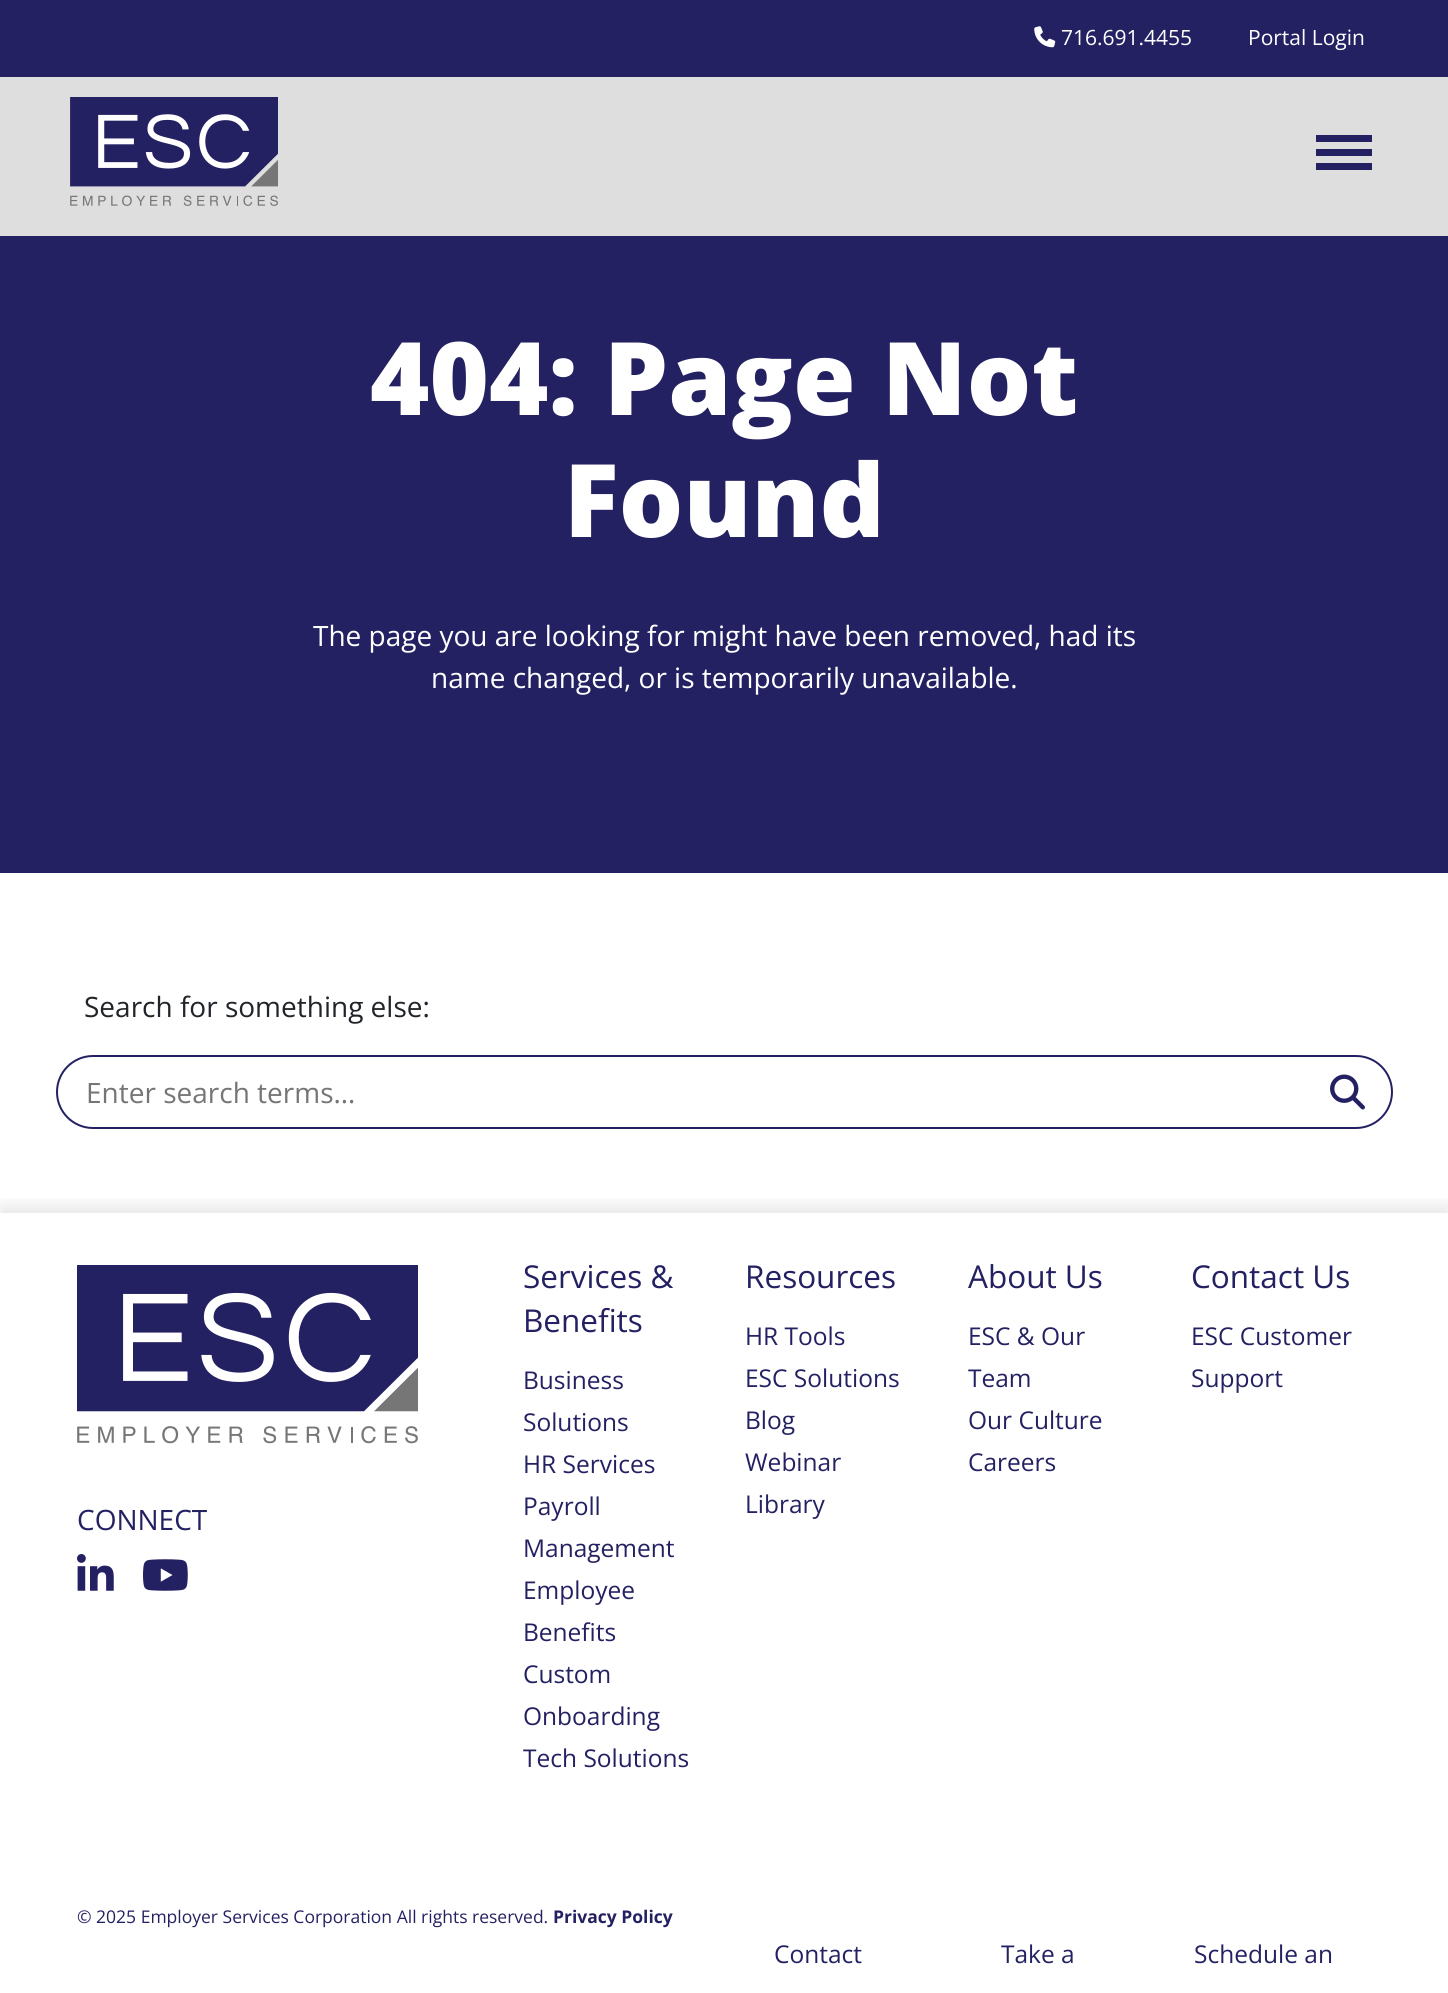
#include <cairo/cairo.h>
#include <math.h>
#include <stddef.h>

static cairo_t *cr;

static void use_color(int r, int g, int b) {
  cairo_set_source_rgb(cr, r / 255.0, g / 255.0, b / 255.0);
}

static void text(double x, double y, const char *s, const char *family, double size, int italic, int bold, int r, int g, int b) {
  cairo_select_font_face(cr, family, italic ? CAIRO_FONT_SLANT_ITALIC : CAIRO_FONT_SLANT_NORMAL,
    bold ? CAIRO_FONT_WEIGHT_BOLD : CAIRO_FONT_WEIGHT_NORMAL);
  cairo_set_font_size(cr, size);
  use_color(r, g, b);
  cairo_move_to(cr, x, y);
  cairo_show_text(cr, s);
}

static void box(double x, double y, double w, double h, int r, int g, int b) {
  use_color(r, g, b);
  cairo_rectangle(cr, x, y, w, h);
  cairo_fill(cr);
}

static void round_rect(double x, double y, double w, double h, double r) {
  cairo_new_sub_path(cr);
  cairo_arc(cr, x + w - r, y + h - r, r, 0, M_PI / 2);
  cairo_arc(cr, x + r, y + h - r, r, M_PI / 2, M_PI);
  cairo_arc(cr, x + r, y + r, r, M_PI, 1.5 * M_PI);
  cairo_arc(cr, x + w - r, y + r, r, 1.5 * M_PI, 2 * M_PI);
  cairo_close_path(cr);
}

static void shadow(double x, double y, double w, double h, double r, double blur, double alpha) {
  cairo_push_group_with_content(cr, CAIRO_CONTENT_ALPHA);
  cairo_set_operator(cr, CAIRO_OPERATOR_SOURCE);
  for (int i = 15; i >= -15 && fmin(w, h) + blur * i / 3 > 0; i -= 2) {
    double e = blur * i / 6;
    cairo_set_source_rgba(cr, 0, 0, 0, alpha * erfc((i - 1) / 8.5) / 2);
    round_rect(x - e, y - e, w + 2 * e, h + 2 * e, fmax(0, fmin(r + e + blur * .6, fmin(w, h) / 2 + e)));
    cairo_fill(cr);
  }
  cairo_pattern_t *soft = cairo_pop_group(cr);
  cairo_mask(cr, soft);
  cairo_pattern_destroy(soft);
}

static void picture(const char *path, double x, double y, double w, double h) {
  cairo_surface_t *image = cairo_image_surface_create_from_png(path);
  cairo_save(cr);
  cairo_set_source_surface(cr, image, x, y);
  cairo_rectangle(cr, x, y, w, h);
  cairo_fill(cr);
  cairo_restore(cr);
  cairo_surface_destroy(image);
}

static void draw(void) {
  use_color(255, 255, 255);
  cairo_paint(cr);
  box(0, 0, 1448, 77, 36, 33, 99);
  picture("img_01.png", 1034, 26, 22, 22);
  box(0, 77, 1448, 159, 222, 222, 222);
  picture("img_02.png", 70, 97, 208, 109);
  box(1316, 135, 56, 7, 36, 33, 99);
  box(1316, 149, 56, 7, 36, 33, 99);
  box(1316, 163, 56, 7, 36, 33, 99);
  box(0, 236, 1448, 637, 36, 33, 99);
  round_rect(57, 1056, 1335, 72, 36);
  cairo_stroke(cr);
  picture("img_03.png", 1330, 1074, 35, 36);
  cairo_save(cr);
  cairo_rectangle(cr, 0, 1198, 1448, 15);
  cairo_clip(cr);
  use_color(0, 0, 0);
  shadow(0, 1206, 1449, 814, 0, 9, 0.1);
  cairo_restore(cr);
  picture("img_04.png", 77, 1265, 341, 179);
  picture("img_05.png", 77, 1554, 37, 37);
  picture("img_06.png", 143, 1559, 45, 32);
  text(1061, 45, "716.691.4455", "Open Sans", 21, 0, 0, 255, 255, 255);
  text(1248, 45, "Portal Login", "Open Sans", 21, 0, 0, 255, 255, 255);
  text(370, 415, "404: Page Not", "Open Sans ExtraBold", 101.5, 0, 0, 255, 255, 255);
  text(564, 537, "Found", "Open Sans ExtraBold", 101.5, 0, 0, 255, 255, 255);
  text(313, 646, "The page you are looking for might have been removed, had its", "Open Sans", 28, 0, 0, 255, 255, 255);
  text(431, 688, "name changed, or is temporarily unavailable.", "Open Sans", 28, 0, 0, 255, 255, 255);
  text(84, 1017, "Search for something else:", "Open Sans", 28, 0, 0, 33, 37, 41);
  text(86, 1103, "Enter search terms…", "Open Sans", 28, 0, 0, 117, 117, 117);
  text(77, 1530, "CONNECT", "Open Sans", 28, 0, 0, 36, 33, 99);
  text(523, 1288, "Services &", "Open Sans", 31.5, 0, 0, 36, 33, 99);
  text(523, 1332, "Benefits", "Open Sans", 31.5, 0, 0, 36, 33, 99);
  text(523, 1389, "Business", "Open Sans", 24.5, 0, 0, 36, 33, 99);
  text(523, 1431, "Solutions", "Open Sans", 24.5, 0, 0, 36, 33, 99);
  text(523, 1473, "HR Services", "Open Sans", 24.5, 0, 0, 36, 33, 99);
  text(523, 1515, "Payroll", "Open Sans", 24.5, 0, 0, 36, 33, 99);
  text(523, 1557, "Management", "Open Sans", 24.5, 0, 0, 36, 33, 99);
  text(523, 1599, "Employee", "Open Sans", 24.5, 0, 0, 36, 33, 99);
  text(523, 1641, "Benefits", "Open Sans", 24.5, 0, 0, 36, 33, 99);
  text(523, 1683, "Custom", "Open Sans", 24.5, 0, 0, 36, 33, 99);
  text(523, 1725, "Onboarding", "Open Sans", 24.5, 0, 0, 36, 33, 99);
  text(523, 1767, "Tech Solutions", "Open Sans", 24.5, 0, 0, 36, 33, 99);
  text(745, 1288, "Resources", "Open Sans", 31.5, 0, 0, 36, 33, 99);
  text(745, 1345, "HR Tools", "Open Sans", 24.5, 0, 0, 36, 33, 99);
  text(745, 1387, "ESC Solutions", "Open Sans", 24.5, 0, 0, 36, 33, 99);
  text(745, 1429, "Blog", "Open Sans", 24.5, 0, 0, 36, 33, 99);
  text(745, 1471, "Webinar", "Open Sans", 24.5, 0, 0, 36, 33, 99);
  text(745, 1513, "Library", "Open Sans", 24.5, 0, 0, 36, 33, 99);
  text(968, 1288, "About Us", "Open Sans", 31.5, 0, 0, 36, 33, 99);
  text(968, 1345, "ESC & Our", "Open Sans", 24.5, 0, 0, 36, 33, 99);
  text(968, 1387, "Team", "Open Sans", 24.5, 0, 0, 36, 33, 99);
  text(968, 1429, "Our Culture", "Open Sans", 24.5, 0, 0, 36, 33, 99);
  text(968, 1471, "Careers", "Open Sans", 24.5, 0, 0, 36, 33, 99);
  text(1191, 1288, "Contact Us", "Open Sans", 31.5, 0, 0, 36, 33, 99);
  text(1191, 1345, "ESC Customer", "Open Sans", 24.5, 0, 0, 36, 33, 99);
  text(1191, 1387, "Support", "Open Sans", 24.5, 0, 0, 36, 33, 99);
  text(77, 1923, "© 2025 Employer Services Corporation All rights reserved.", "Open Sans", 17.5, 0, 0, 36, 33, 99);
  text(553, 1923, "Privacy Policy", "Open Sans", 17.5, 0, 1, 36, 33, 99);
  text(774, 1963, "Contact", "Open Sans", 24.5, 0, 0, 36, 33, 99);
  text(1001, 1963, "Take a", "Open Sans", 24.5, 0, 0, 36, 33, 99);
  text(1194, 1963, "Schedule an", "Open Sans", 24.5, 0, 0, 36, 33, 99);
}

int main(void) {
  cairo_surface_t *surface = cairo_image_surface_create(CAIRO_FORMAT_RGB24, 1448, 1993);
  cr = cairo_create(surface);
  cairo_font_options_t *options = cairo_font_options_create();
  cairo_font_options_set_hint_metrics(options, CAIRO_HINT_METRICS_OFF);
  cairo_font_options_set_hint_style(options, CAIRO_HINT_STYLE_NONE);
  cairo_set_font_options(cr, options);
  cairo_set_miter_limit(cr, 4);
  draw();
  cairo_surface_write_to_png(surface, "out.png");
  cairo_font_options_destroy(options);
  cairo_destroy(cr);
  cairo_surface_destroy(surface);
  return 0;
}
